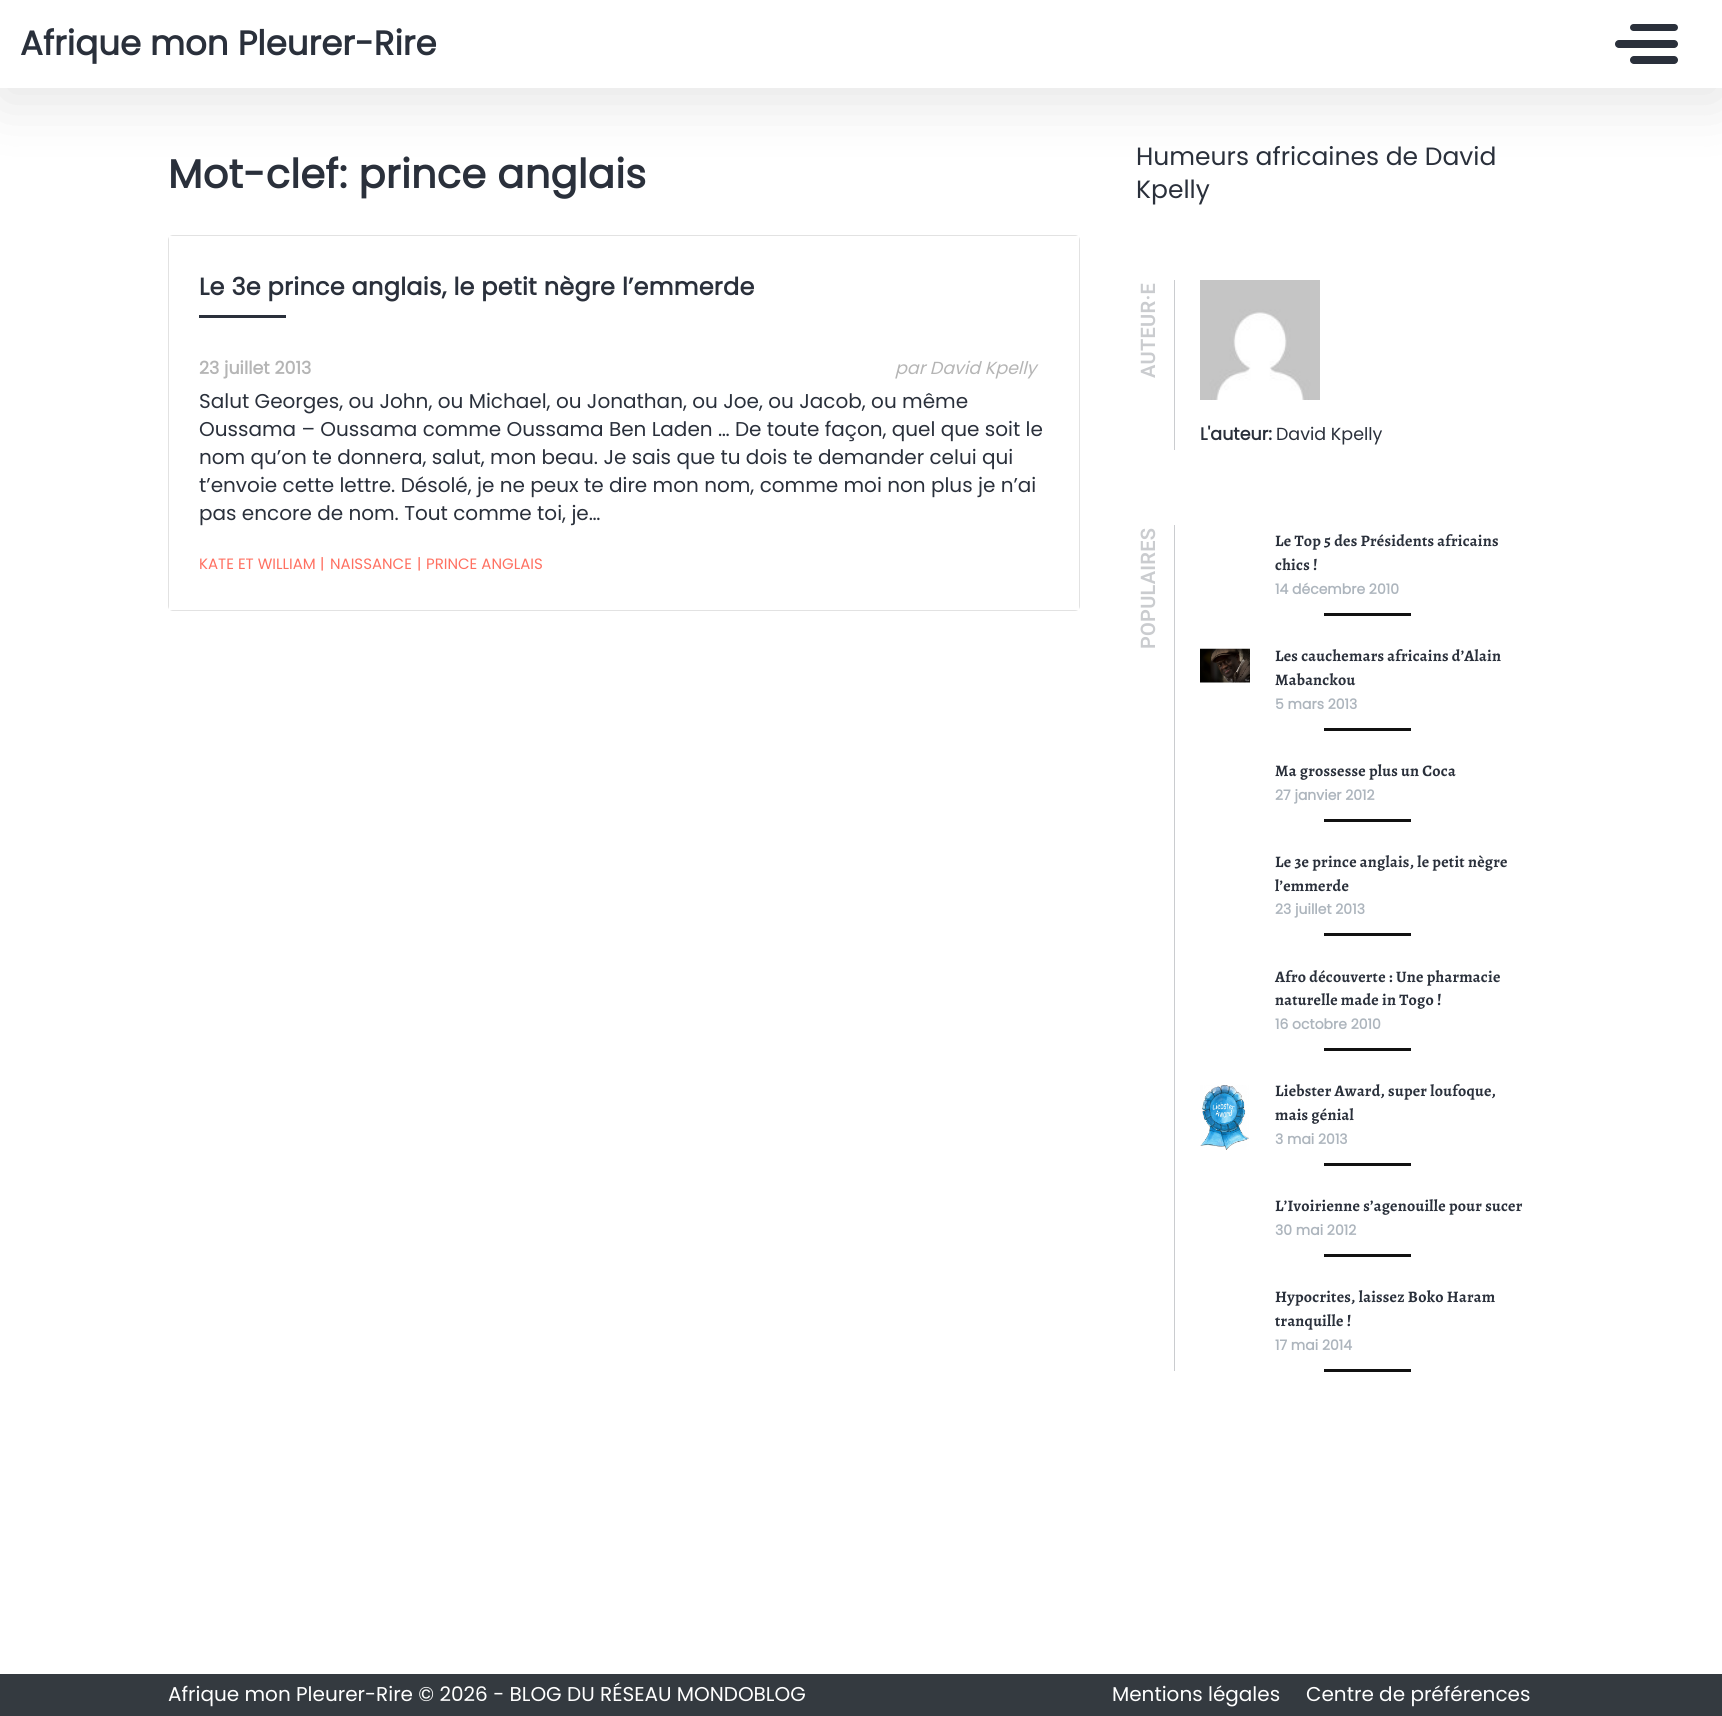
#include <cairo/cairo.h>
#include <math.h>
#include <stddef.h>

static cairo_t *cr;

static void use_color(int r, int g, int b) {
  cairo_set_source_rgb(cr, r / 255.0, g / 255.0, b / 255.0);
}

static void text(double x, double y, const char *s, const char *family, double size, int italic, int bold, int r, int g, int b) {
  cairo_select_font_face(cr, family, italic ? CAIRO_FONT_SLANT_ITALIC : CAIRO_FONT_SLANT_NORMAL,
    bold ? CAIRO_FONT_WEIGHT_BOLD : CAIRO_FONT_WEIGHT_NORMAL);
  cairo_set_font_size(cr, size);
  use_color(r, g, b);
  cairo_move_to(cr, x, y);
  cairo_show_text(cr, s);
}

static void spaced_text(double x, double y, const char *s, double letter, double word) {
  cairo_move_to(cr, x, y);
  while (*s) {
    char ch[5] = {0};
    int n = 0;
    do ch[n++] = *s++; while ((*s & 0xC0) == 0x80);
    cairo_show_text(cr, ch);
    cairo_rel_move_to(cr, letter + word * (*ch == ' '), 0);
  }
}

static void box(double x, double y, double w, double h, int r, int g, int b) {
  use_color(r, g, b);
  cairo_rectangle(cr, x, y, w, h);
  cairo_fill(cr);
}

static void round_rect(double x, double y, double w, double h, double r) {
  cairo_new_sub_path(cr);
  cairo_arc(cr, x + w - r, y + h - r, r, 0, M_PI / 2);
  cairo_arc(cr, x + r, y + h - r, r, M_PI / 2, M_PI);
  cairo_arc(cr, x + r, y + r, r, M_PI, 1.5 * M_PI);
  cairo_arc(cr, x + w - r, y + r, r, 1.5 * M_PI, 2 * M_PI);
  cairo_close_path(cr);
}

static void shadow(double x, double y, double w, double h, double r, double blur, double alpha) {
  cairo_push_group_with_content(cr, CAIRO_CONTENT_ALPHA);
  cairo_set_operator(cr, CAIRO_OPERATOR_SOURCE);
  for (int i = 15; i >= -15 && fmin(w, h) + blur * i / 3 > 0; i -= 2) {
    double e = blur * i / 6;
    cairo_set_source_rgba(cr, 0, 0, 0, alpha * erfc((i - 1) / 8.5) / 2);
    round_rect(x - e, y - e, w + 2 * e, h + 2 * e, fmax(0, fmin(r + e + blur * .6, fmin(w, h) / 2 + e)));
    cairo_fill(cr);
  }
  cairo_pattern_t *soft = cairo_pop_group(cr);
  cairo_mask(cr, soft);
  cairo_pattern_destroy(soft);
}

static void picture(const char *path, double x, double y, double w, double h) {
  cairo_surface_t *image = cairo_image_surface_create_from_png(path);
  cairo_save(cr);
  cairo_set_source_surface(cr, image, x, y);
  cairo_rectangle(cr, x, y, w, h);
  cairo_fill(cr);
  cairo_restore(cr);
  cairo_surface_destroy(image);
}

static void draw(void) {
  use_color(255, 255, 255);
  cairo_paint(cr);
  use_color(0, 0, 0);
  shadow(0, 13, 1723, 87, 0, 31, 0.11);
  box(0, 0, 1722, 88, 255, 255, 255);
  use_color(42, 48, 59);
  round_rect(1615, 40, 63, 8, 4);
  cairo_fill(cr);
  round_rect(1630, 24, 48, 7, 3.5);
  cairo_fill(cr);
  round_rect(1630, 56, 48, 8, 4);
  cairo_fill(cr);
  round_rect(168.5, 235.5, 911, 375, 4.5);
  cairo_set_source_rgba(cr, 0.039, 0.039, 0.039, 0.12);
  cairo_set_line_width(cr, 1);
  cairo_stroke(cr);
  box(169, 236, 910, 374, 255, 255, 255);
  box(199, 315, 87, 3, 42, 48, 59);
  box(1174, 280, 1, 170, 202, 204, 207);
  picture("img_01.png", 1200, 280, 120, 120);
  box(1174, 525, 1, 846, 202, 204, 207);
  box(1324, 613, 87, 3, 17, 17, 17);
  picture("img_02.png", 1200, 648, 50, 35);
  box(1324, 728, 87, 3, 17, 17, 17);
  box(1324, 819, 87, 3, 17, 17, 17);
  box(1324, 933, 87, 3, 17, 17, 17);
  box(1324, 1048, 87, 3, 17, 17, 17);
  picture("img_03.png", 1200, 1085, 49, 65);
  box(1324, 1163, 87, 3, 17, 17, 17);
  box(1324, 1254, 87, 3, 17, 17, 17);
  box(1324, 1369, 87, 3, 17, 17, 17);
  box(0, 1674, 1722, 42, 52, 58, 64);
  text(20, 55, "Afrique mon Pleurer-Rire", "Poppins", 34, 0, 1, 42, 48, 59);
  cairo_set_font_size(cr, 40);
  spaced_text(168, 188, "Mot-clef: prince anglais", 0.25, 0);
  cairo_set_font_size(cr, 24);
  spaced_text(199, 295, "Le 3e prince anglais, le petit nègre l’emmerde", 0.25, 0);
  text(199, 374, "23 juillet 2013", "Poppins", 17.5, 0, 1, 181, 181, 181);
  text(895, 374, "par David Kpelly", "Poppins", 17.5, 1, 0, 181, 181, 181);
  text(199, 408, "Salut Georges, ou John, ou Michael, ou Jonathan, ou Joe, ou Jacob, ou même", "Poppins", 20, 0, 0, 42, 48, 59);
  text(199, 436, "Oussama – Oussama comme Oussama Ben Laden … De toute façon, quel que soit le", "Poppins", 20, 0, 0, 42, 48, 59);
  text(199, 464, "nom qu’on te donnera, salut, mon beau. Je sais que tu dois te demander celui qui", "Poppins", 20, 0, 0, 42, 48, 59);
  text(199, 492, "t’envoie cette lettre. Désolé, je ne peux te dire mon nom, comme moi non plus je n’ai", "Poppins", 20, 0, 0, 42, 48, 59);
  text(199, 520, "pas encore de nom. Tout comme toi, je…", "Poppins", 20, 0, 0, 42, 48, 59);
  text(199, 569, "KATE ET WILLIAM", "Poppins", 15, 0, 0, 255, 112, 97);
  text(320, 569, "|", "Poppins", 15, 0, 0, 255, 112, 97);
  text(330, 569, "NAISSANCE", "Poppins", 15, 0, 0, 255, 112, 97);
  text(417, 569, "|", "Poppins", 15, 0, 0, 255, 112, 97);
  text(426, 569, "PRINCE ANGLAIS", "Poppins", 15, 0, 0, 255, 112, 97);
  text(1136, 165, "Humeurs africaines de David", "Poppins", 25, 0, 0, 42, 48, 59);
  text(1136, 198, "Kpelly", "Poppins", 25, 0, 0, 42, 48, 59);
  cairo_select_font_face(cr, "Roboto SemiBold", CAIRO_FONT_SLANT_NORMAL, CAIRO_FONT_WEIGHT_NORMAL);
  cairo_set_font_size(cr, 20);
  use_color(202, 204, 207);
  cairo_save(cr);
  cairo_translate(cr, 1155, 378);
  cairo_rotate(cr, -90 * M_PI / 180);
  spaced_text(0, 0, "AUTEUR·E", 0.25, 0);
  cairo_restore(cr);
  text(1200, 440, "L'auteur:", "Poppins", 17.5, 0, 1, 42, 48, 59);
  text(1276, 440, "David Kpelly", "Poppins", 17.5, 0, 0, 42, 48, 59);
  cairo_select_font_face(cr, "Roboto SemiBold", CAIRO_FONT_SLANT_NORMAL, CAIRO_FONT_WEIGHT_NORMAL);
  cairo_set_font_size(cr, 20);
  use_color(202, 204, 207);
  cairo_save(cr);
  cairo_translate(cr, 1155, 649);
  cairo_rotate(cr, -90 * M_PI / 180);
  spaced_text(0, 0, "POPULAIRES", 0.25, 0);
  cairo_restore(cr);
  cairo_select_font_face(cr, "Alegreya", CAIRO_FONT_SLANT_NORMAL, CAIRO_FONT_WEIGHT_BOLD);
  cairo_set_font_size(cr, 16);
  use_color(42, 48, 59);
  spaced_text(1275, 546, "Le Top 5 des Présidents africains", 0.25, 0);
  spaced_text(1275, 570, "chics !", 0.25, 0);
  text(1275, 594, "14 décembre 2010", "Poppins", 14, 0, 1, 173, 181, 189);
  cairo_select_font_face(cr, "Alegreya", CAIRO_FONT_SLANT_NORMAL, CAIRO_FONT_WEIGHT_BOLD);
  cairo_set_font_size(cr, 16);
  use_color(42, 48, 59);
  spaced_text(1275, 661, "Les cauchemars africains d’Alain", 0.25, 0);
  spaced_text(1275, 685, "Mabanckou", 0.25, 0);
  text(1275, 709, "5 mars 2013", "Poppins", 14, 0, 1, 173, 181, 189);
  cairo_select_font_face(cr, "Alegreya", CAIRO_FONT_SLANT_NORMAL, CAIRO_FONT_WEIGHT_BOLD);
  cairo_set_font_size(cr, 16);
  use_color(42, 48, 59);
  spaced_text(1275, 776, "Ma grossesse plus un Coca", 0.25, 0);
  text(1275, 800, "27 janvier 2012", "Poppins", 14, 0, 1, 173, 181, 189);
  cairo_select_font_face(cr, "Alegreya", CAIRO_FONT_SLANT_NORMAL, CAIRO_FONT_WEIGHT_BOLD);
  cairo_set_font_size(cr, 16);
  use_color(42, 48, 59);
  spaced_text(1275, 867, "Le 3e prince anglais, le petit nègre", 0.25, 0);
  spaced_text(1275, 891, "l’emmerde", 0.25, 0);
  text(1275, 914, "23 juillet 2013", "Poppins", 14, 0, 1, 173, 181, 189);
  cairo_select_font_face(cr, "Alegreya", CAIRO_FONT_SLANT_NORMAL, CAIRO_FONT_WEIGHT_BOLD);
  cairo_set_font_size(cr, 16);
  use_color(42, 48, 59);
  spaced_text(1275, 982, "Afro découverte : Une pharmacie", 0.25, 0);
  spaced_text(1275, 1005, "naturelle made in Togo !", 0.25, 0);
  text(1275, 1029, "16 octobre 2010", "Poppins", 14, 0, 1, 173, 181, 189);
  cairo_select_font_face(cr, "Alegreya", CAIRO_FONT_SLANT_NORMAL, CAIRO_FONT_WEIGHT_BOLD);
  cairo_set_font_size(cr, 16);
  use_color(42, 48, 59);
  spaced_text(1275, 1096, "Liebster Award, super loufoque,", 0.25, 0);
  spaced_text(1275, 1120, "mais génial", 0.25, 0);
  text(1275, 1144, "3 mai 2013", "Poppins", 14, 0, 1, 173, 181, 189);
  cairo_select_font_face(cr, "Alegreya", CAIRO_FONT_SLANT_NORMAL, CAIRO_FONT_WEIGHT_BOLD);
  cairo_set_font_size(cr, 16);
  use_color(42, 48, 59);
  spaced_text(1275, 1211, "L’Ivoirienne s’agenouille pour sucer", 0.25, 0);
  text(1275, 1235, "30 mai 2012", "Poppins", 14, 0, 1, 173, 181, 189);
  cairo_select_font_face(cr, "Alegreya", CAIRO_FONT_SLANT_NORMAL, CAIRO_FONT_WEIGHT_BOLD);
  cairo_set_font_size(cr, 16);
  use_color(42, 48, 59);
  spaced_text(1275, 1302, "Hypocrites, laissez Boko Haram", 0.25, 0);
  spaced_text(1275, 1326, "tranquille !", 0.25, 0);
  text(1275, 1350, "17 mai 2014", "Poppins", 14, 0, 1, 173, 181, 189);
  text(168, 1701, "Afrique mon Pleurer-Rire © 2026 - BLOG DU RÉSEAU MONDOBLOG", "Poppins", 20, 0, 0, 255, 255, 255);
  text(1112, 1701, "Mentions légales", "Poppins", 20, 0, 0, 255, 255, 255);
  text(1306, 1701, "Centre de préférences", "Poppins", 20, 0, 0, 255, 255, 255);
}

int main(void) {
  cairo_surface_t *surface = cairo_image_surface_create(CAIRO_FORMAT_RGB24, 1722, 1716);
  cr = cairo_create(surface);
  cairo_font_options_t *options = cairo_font_options_create();
  cairo_font_options_set_hint_metrics(options, CAIRO_HINT_METRICS_OFF);
  cairo_font_options_set_hint_style(options, CAIRO_HINT_STYLE_NONE);
  cairo_set_font_options(cr, options);
  cairo_set_miter_limit(cr, 4);
  draw();
  cairo_surface_write_to_png(surface, "out.png");
  cairo_font_options_destroy(options);
  cairo_destroy(cr);
  cairo_surface_destroy(surface);
  return 0;
}
